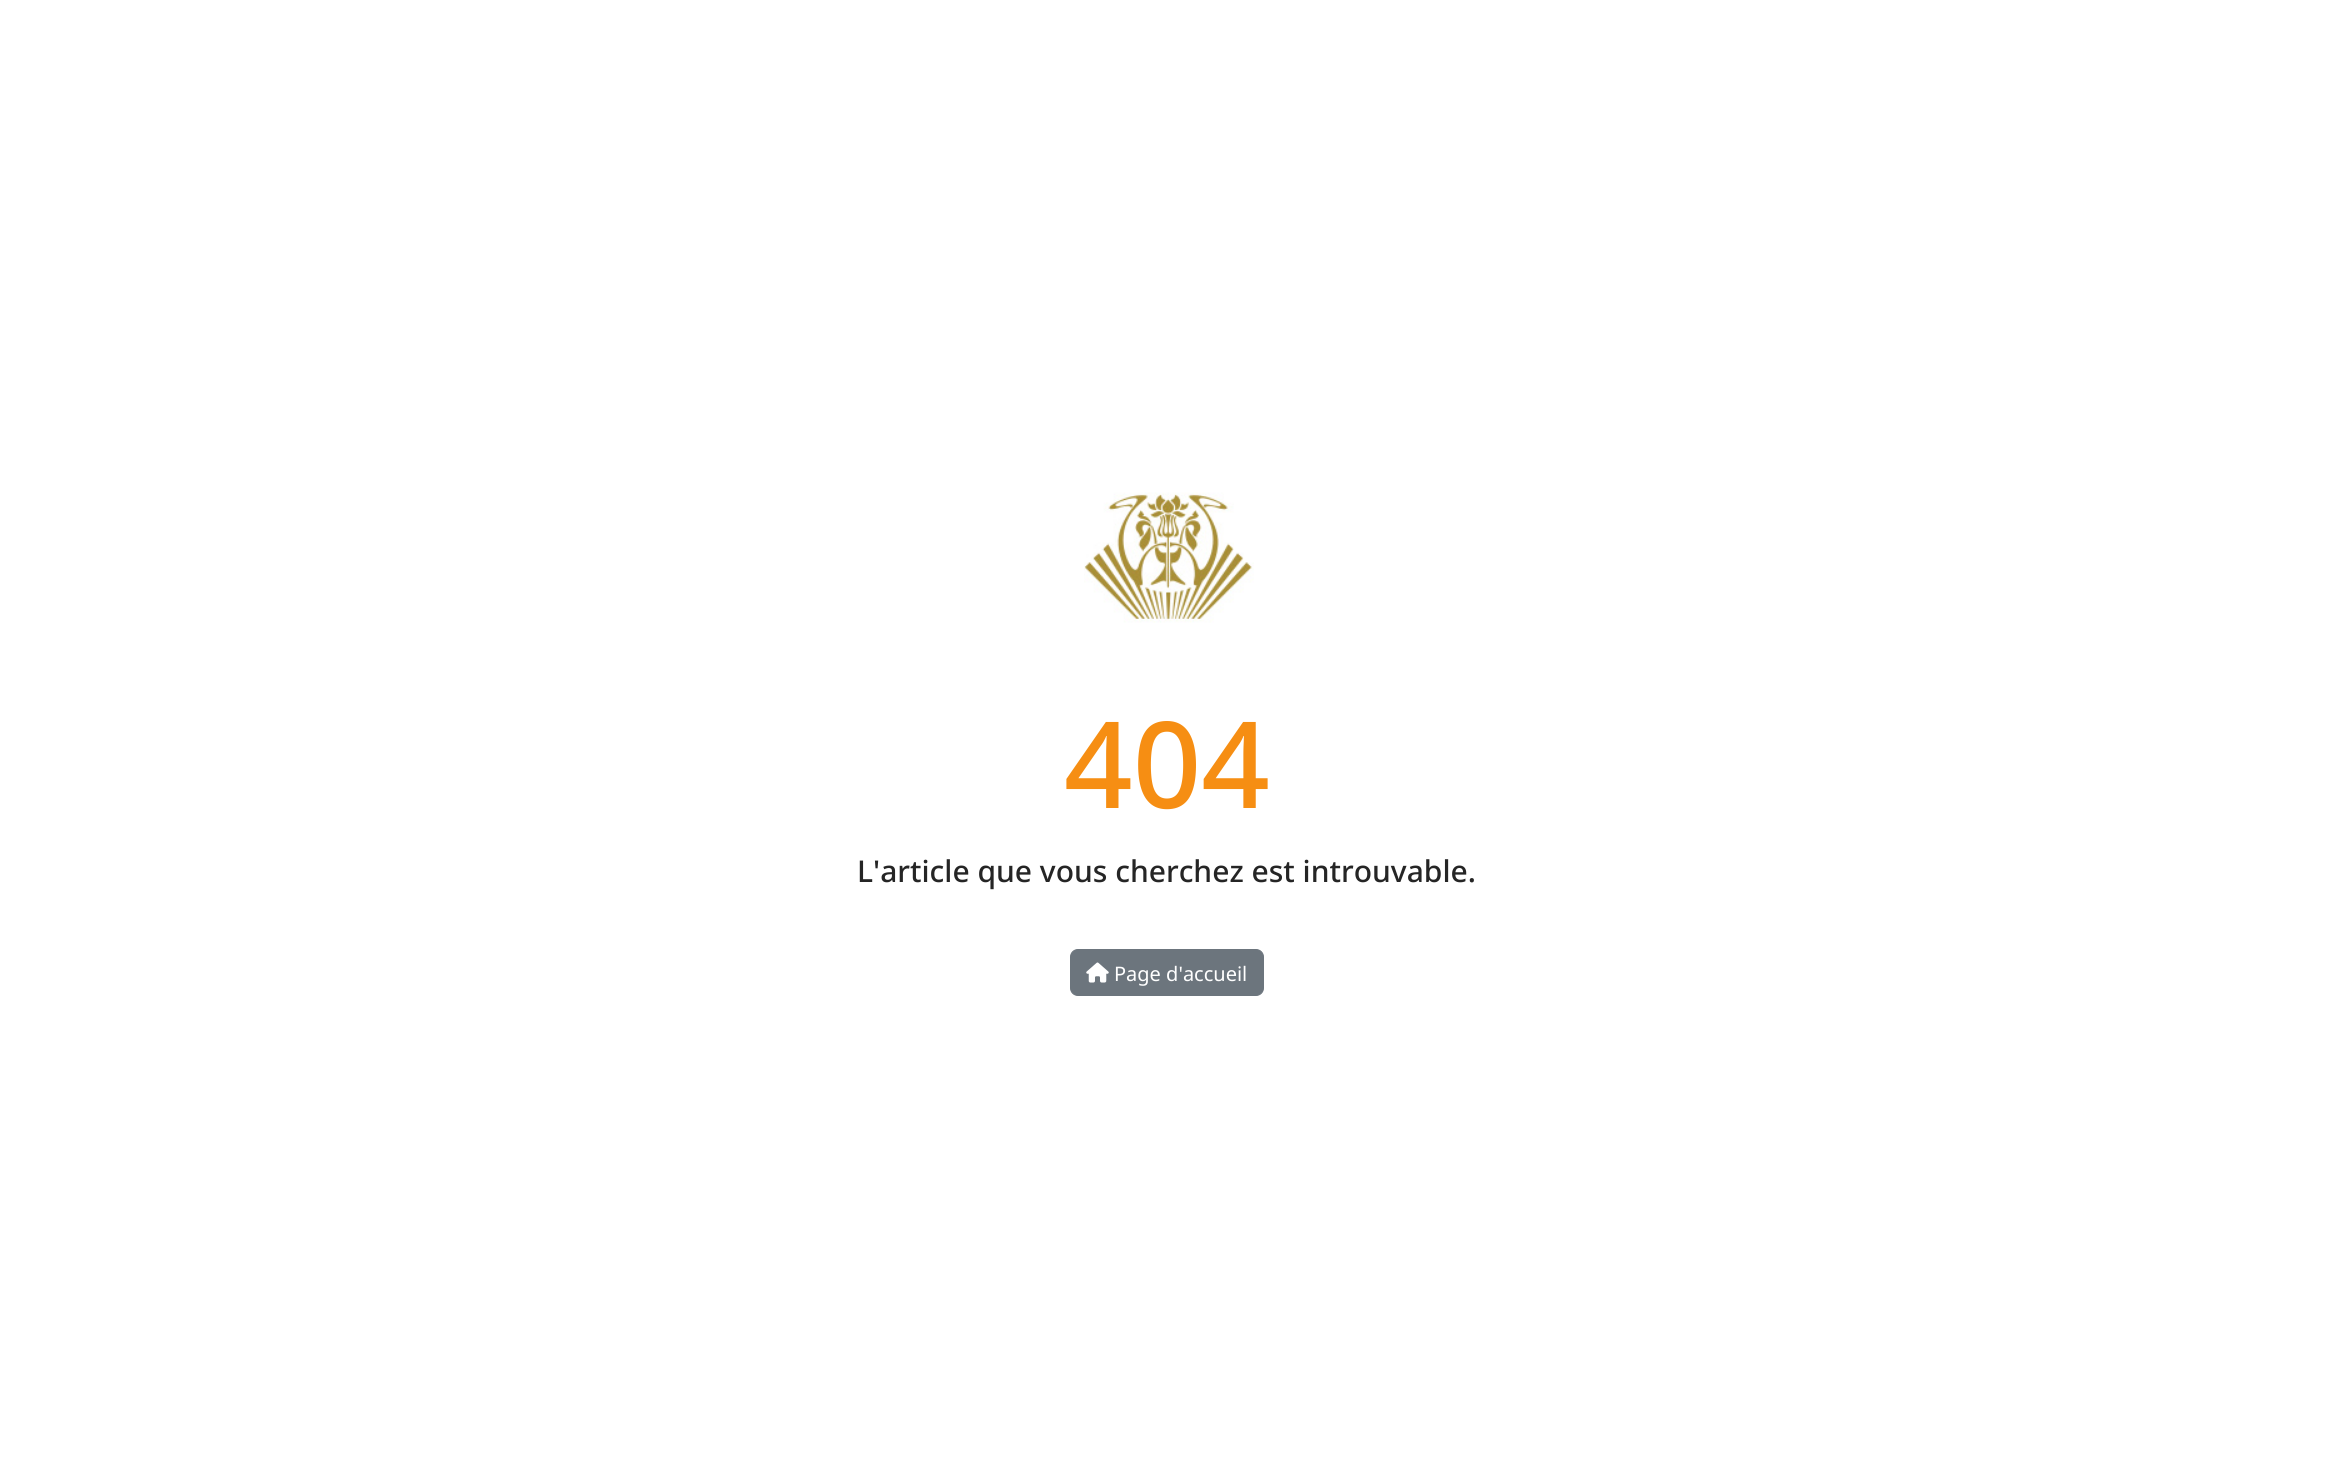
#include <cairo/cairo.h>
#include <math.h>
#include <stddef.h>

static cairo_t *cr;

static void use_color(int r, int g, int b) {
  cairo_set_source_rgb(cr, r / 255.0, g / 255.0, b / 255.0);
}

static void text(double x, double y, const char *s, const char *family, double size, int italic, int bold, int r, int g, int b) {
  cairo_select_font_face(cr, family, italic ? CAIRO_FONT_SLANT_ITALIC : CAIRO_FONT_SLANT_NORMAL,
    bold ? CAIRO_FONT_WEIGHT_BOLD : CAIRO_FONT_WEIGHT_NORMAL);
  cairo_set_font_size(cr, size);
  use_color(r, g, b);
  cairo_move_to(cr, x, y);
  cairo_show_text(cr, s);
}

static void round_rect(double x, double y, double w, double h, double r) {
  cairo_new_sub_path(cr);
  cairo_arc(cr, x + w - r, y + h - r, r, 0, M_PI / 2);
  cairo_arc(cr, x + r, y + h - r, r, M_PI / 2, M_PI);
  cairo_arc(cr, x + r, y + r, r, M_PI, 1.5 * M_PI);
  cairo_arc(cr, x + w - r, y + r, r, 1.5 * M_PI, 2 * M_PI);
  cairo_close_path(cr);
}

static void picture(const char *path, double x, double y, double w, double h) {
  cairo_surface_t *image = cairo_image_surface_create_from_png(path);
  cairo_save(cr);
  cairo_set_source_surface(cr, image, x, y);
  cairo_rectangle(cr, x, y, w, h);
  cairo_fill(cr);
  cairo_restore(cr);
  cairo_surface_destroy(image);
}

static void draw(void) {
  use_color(255, 255, 255);
  cairo_paint(cr);
  picture("img_01.png", 1084, 492, 170, 131);
  use_color(108, 117, 125);
  round_rect(1070.5, 949.5, 193, 46, 7.5);
  cairo_fill_preserve(cr);
  cairo_set_line_width(cr, 1);
  cairo_stroke(cr);
  picture("img_02.png", 1086, 962, 23, 21);
  text(1064, 808, "404", "Noto Sans Medium", 120, 0, 0, 246, 142, 19);
  text(857, 882, "L'article que vous cherchez est introuvable.", "Noto Sans Medium", 30, 0, 0, 37, 37, 37);
  text(1114, 981, "Page d'accueil", "Noto Sans", 20, 0, 0, 255, 255, 255);
}

int main(void) {
  cairo_surface_t *surface = cairo_image_surface_create(CAIRO_FORMAT_RGB24, 2333, 1458);
  cr = cairo_create(surface);
  cairo_font_options_t *options = cairo_font_options_create();
  cairo_font_options_set_hint_metrics(options, CAIRO_HINT_METRICS_OFF);
  cairo_font_options_set_hint_style(options, CAIRO_HINT_STYLE_NONE);
  cairo_set_font_options(cr, options);
  cairo_set_miter_limit(cr, 4);
  draw();
  cairo_surface_write_to_png(surface, "out.png");
  cairo_font_options_destroy(options);
  cairo_destroy(cr);
  cairo_surface_destroy(surface);
  return 0;
}
